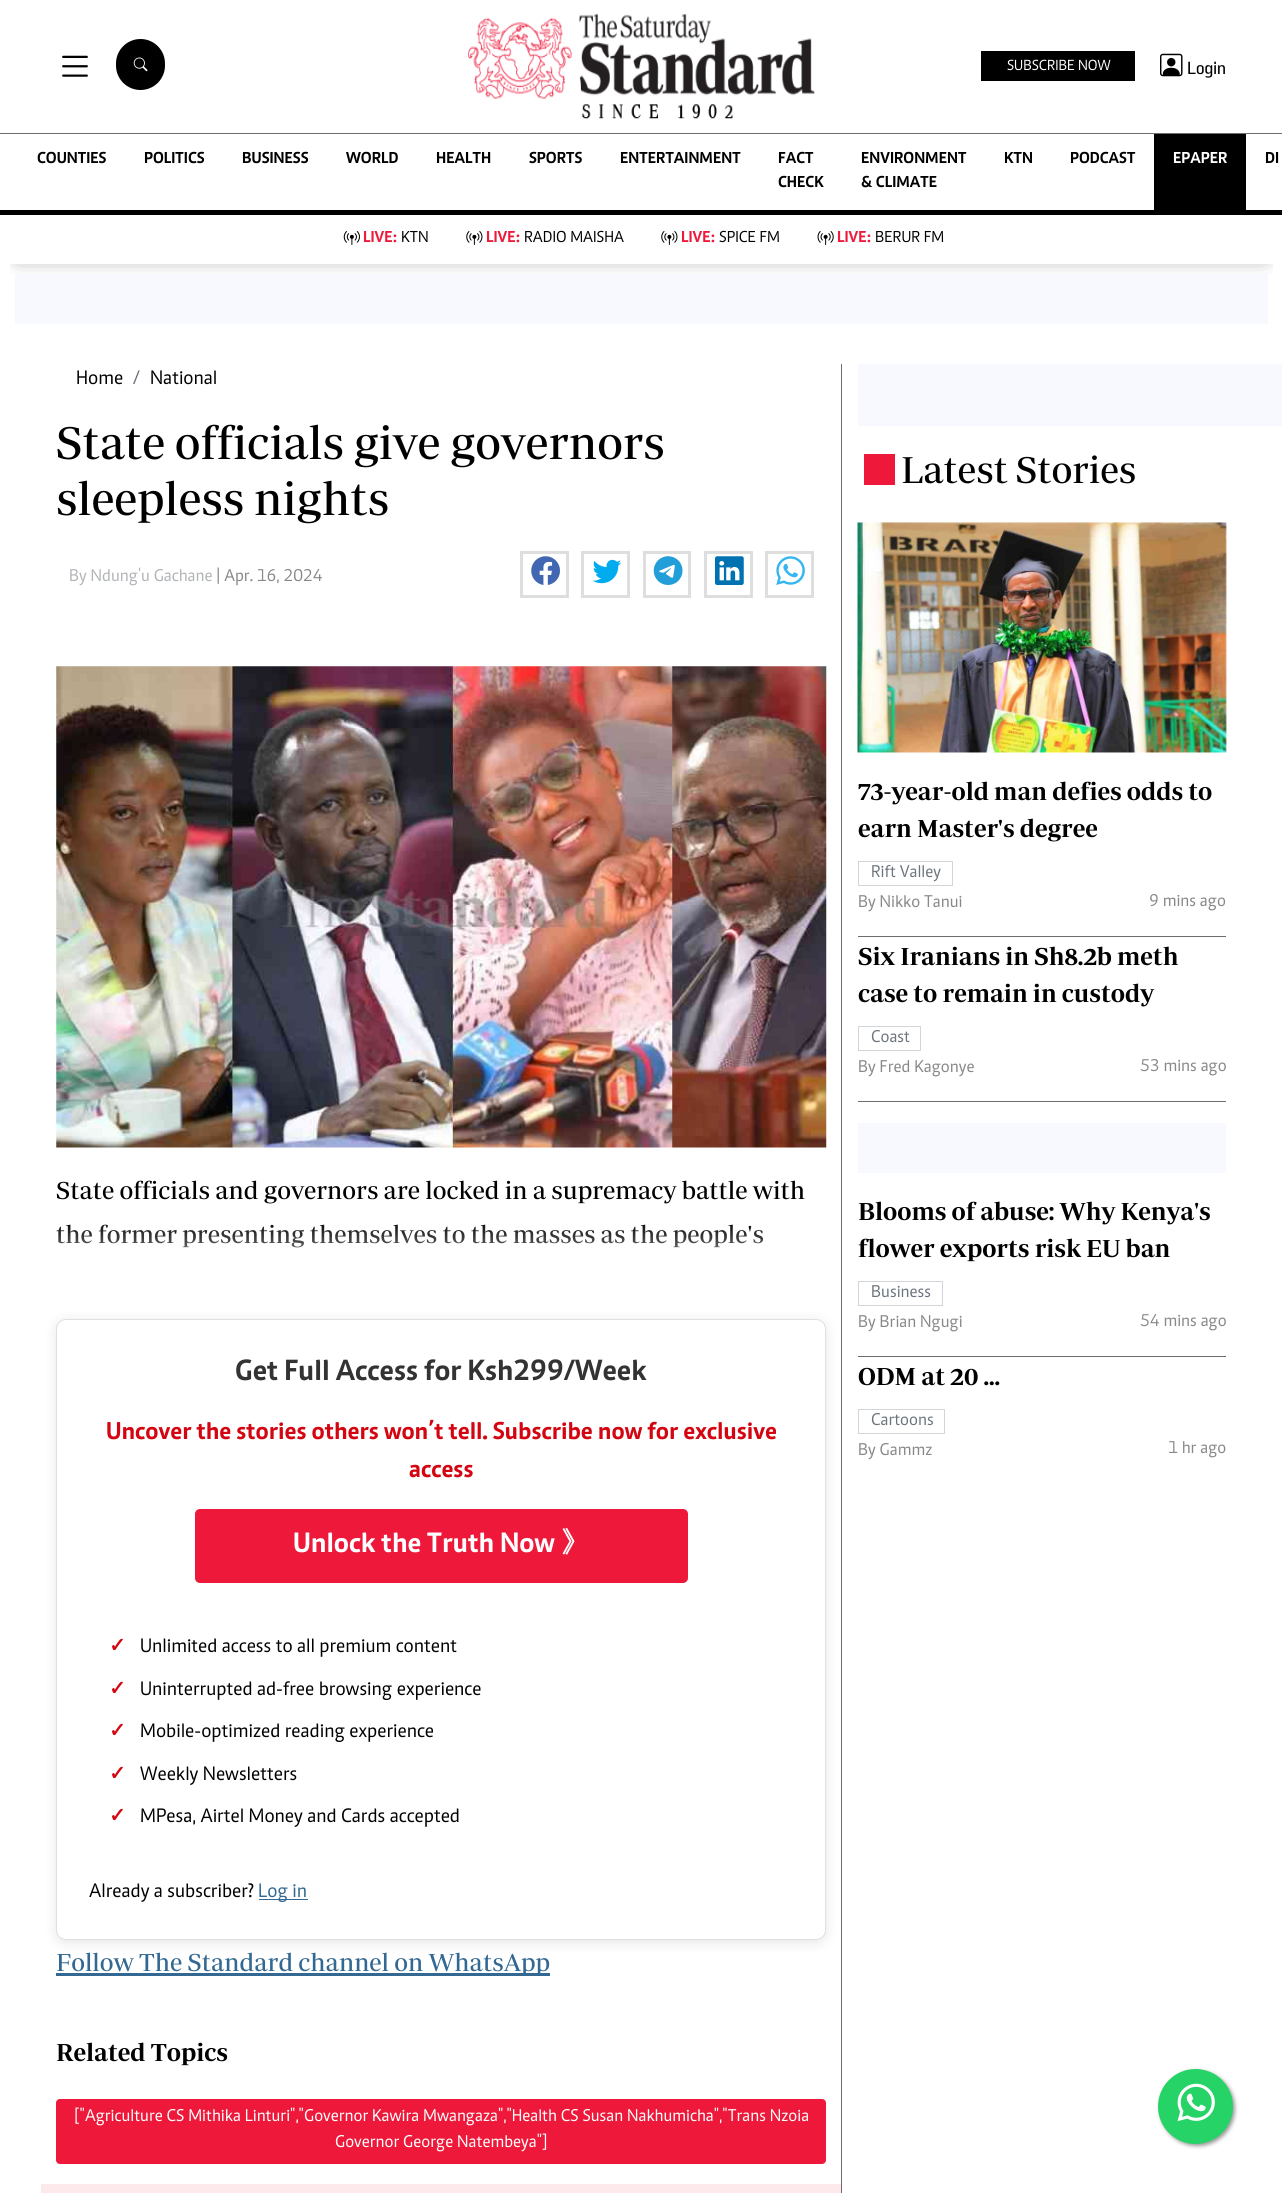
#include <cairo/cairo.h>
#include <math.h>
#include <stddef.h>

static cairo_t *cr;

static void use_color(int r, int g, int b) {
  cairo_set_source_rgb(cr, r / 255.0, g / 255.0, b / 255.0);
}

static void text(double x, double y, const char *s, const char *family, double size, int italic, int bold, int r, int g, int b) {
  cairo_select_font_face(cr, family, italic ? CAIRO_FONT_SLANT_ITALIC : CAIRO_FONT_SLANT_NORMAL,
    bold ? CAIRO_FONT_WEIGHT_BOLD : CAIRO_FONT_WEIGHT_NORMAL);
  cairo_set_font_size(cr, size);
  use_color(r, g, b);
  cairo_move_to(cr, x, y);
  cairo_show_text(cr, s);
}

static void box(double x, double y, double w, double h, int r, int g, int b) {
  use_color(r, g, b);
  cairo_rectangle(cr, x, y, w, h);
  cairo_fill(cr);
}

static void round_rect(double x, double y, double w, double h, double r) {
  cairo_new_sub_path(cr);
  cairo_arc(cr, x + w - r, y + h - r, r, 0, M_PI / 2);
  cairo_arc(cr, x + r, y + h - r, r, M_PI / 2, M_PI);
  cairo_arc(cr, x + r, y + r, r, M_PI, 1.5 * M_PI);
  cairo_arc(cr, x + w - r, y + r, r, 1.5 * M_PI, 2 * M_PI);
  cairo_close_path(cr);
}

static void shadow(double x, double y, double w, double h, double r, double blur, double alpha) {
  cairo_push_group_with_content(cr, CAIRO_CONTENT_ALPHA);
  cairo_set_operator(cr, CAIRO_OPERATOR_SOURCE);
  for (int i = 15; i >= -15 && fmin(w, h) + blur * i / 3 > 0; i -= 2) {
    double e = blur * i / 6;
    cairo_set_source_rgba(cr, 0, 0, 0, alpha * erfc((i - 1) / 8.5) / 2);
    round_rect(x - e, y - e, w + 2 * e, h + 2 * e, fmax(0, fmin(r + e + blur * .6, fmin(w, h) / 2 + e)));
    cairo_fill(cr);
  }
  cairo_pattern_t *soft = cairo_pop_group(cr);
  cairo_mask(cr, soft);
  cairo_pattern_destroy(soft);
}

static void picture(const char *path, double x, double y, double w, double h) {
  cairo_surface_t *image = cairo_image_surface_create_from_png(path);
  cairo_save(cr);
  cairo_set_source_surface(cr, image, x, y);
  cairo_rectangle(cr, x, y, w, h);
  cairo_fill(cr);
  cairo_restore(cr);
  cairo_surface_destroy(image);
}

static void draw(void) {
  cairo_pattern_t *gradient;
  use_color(255, 255, 255);
  cairo_paint(cr);
  picture("img_01.png", 62, 55, 26, 22);
  use_color(0, 0, 0);
  round_rect(116, 39, 49, 51, 24.5);
  cairo_fill(cr);
  picture("img_02.png", 133, 57, 15, 15);
  picture("img_03.png", 468, 14, 347, 105);
  box(981, 51, 154, 30, 0, 0, 0);
  picture("img_04.png", 1160, 53, 23, 24);
  box(0, 133, 1282, 1, 110, 109, 109);
  box(0, 210, 1282, 5, 0, 0, 0);
  box(1154, 134, 92, 76, 0, 0, 0);
  box(15, 274, 1253, 50, 248, 248, 255);
  cairo_save(cr);
  cairo_rectangle(cr, 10, 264, 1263, 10);
  cairo_clip(cr);
  use_color(0, 0, 0);
  shadow(19, 244, 1245, 11, 0, 11, 0.56);
  cairo_restore(cr);
  box(16, 263, 1251, 1, 255, 255, 255);
  picture("img_05.png", 343, 231, 17, 14);
  picture("img_06.png", 466, 231, 17, 14);
  picture("img_06.png", 661, 231, 17, 14);
  picture("img_07.png", 817, 231, 17, 14);
  cairo_rectangle(cr, 521.5, 552.5, 46, 44);
  use_color(222, 222, 222);
  cairo_set_line_width(cr, 3);
  cairo_stroke(cr);
  picture("img_08.png", 531, 556, 29, 29);
  cairo_rectangle(cr, 582.5, 552.5, 46, 44);
  cairo_stroke(cr);
  picture("img_09.png", 592, 559, 30, 25);
  cairo_rectangle(cr, 644.5, 552.5, 45, 44);
  cairo_stroke(cr);
  picture("img_10.png", 653, 556, 30, 29);
  cairo_rectangle(cr, 705.5, 552.5, 46, 44);
  cairo_stroke(cr);
  picture("img_11.png", 715, 556, 29, 29);
  cairo_rectangle(cr, 766.5, 552.5, 46, 44);
  cairo_stroke(cr);
  picture("img_12.png", 776, 556, 29, 29);
  picture("img_13.png", 56, 666, 771, 482);
  box(841, 364, 1, 1829, 110, 109, 109);
  use_color(0, 0, 0);
  shadow(56, 1321, 770, 622, 10, 6, 0.1);
  use_color(255, 255, 255);
  round_rect(56.5, 1319.5, 769, 620, 9.5);
  cairo_fill_preserve(cr);
  use_color(224, 224, 224);
  cairo_set_line_width(cr, 1);
  cairo_stroke(cr);
  use_color(238, 25, 58);
  round_rect(195, 1509, 493, 74, 5);
  cairo_fill(cr);
  box(259, 1899, 49, 1, 50, 104, 145);
  box(56, 1973, 494, 3, 50, 104, 145);
  use_color(238, 25, 58);
  round_rect(56.5, 2099.5, 769, 64, 3.5);
  cairo_fill_preserve(cr);
  cairo_stroke(cr);
  box(41, 2184, 800, 9, 253, 232, 235);
  box(858, 364, 424, 62, 248, 248, 255);
  box(864, 454, 31, 31, 238, 25, 58);
  box(858, 936, 368, 1, 110, 109, 109);
  picture("img_14.png", 857, 522, 370, 231);
  cairo_rectangle(cr, 858.5, 861.5, 94, 24);
  use_color(209, 213, 217);
  cairo_stroke(cr);
  box(858, 1101, 368, 1, 110, 109, 109);
  cairo_rectangle(cr, 858.5, 1026.5, 62, 24);
  use_color(209, 213, 217);
  cairo_stroke(cr);
  box(858, 1123, 368, 50, 248, 248, 255);
  box(858, 1356, 368, 1, 110, 109, 109);
  cairo_rectangle(cr, 858.5, 1281.5, 84, 24);
  use_color(209, 213, 217);
  cairo_stroke(cr);
  cairo_rectangle(cr, 858.5, 1409.5, 86, 24);
  cairo_stroke(cr);
  use_color(153, 153, 153);
  shadow(1160, 2071, 75, 75, 37.5, 2, 1);
  use_color(37, 211, 102);
  cairo_arc(cr, 1195.5, 2106.5, 37.5, 0, 2 * M_PI);
  cairo_fill(cr);
  picture("img_15.png", 1177, 2083, 38, 39);
  text(1007, 70, "SUBSCRIBE NOW", "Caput", 15, 0, 0, 255, 255, 255);
  text(1187, 74, "Login", "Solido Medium", 17.5, 0, 0, 0, 0, 0);
  text(37, 163, "COUNTIES", "Caput", 16.25, 0, 1, 0, 0, 0);
  text(144, 163, "POLITICS", "Caput", 16.25, 0, 1, 0, 0, 0);
  text(242, 163, "BUSINESS", "Caput", 16.25, 0, 1, 0, 0, 0);
  text(346, 163, "WORLD", "Caput", 16.25, 0, 1, 0, 0, 0);
  text(436, 163, "HEALTH", "Caput", 16.25, 0, 1, 0, 0, 0);
  text(529, 163, "SPORTS", "Caput", 16.25, 0, 1, 0, 0, 0);
  text(620, 163, "ENTERTAINMENT", "Caput", 16.25, 0, 1, 0, 0, 0);
  text(778, 163, "FACT", "Caput", 16.25, 0, 1, 0, 0, 0);
  text(778, 187, "CHECK", "Caput", 16.25, 0, 1, 0, 0, 0);
  text(861, 163, "ENVIRONMENT", "Caput", 16.25, 0, 1, 0, 0, 0);
  text(861, 187, "& CLIMATE", "Caput", 16.25, 0, 1, 0, 0, 0);
  text(1004, 163, "KTN", "Caput", 16.25, 0, 1, 0, 0, 0);
  text(1070, 163, "PODCAST", "Caput", 16.25, 0, 1, 0, 0, 0);
  text(1173, 163, "EPAPER", "Caput", 16.25, 0, 1, 255, 255, 255);
  text(1265, 163, "DI", "Caput", 16.25, 0, 1, 0, 0, 0);
  text(363, 242, "LIVE:", "Caput", 16.25, 0, 1, 237, 26, 59);
  text(401, 242, "KTN", "Caput", 16.25, 0, 0, 0, 0, 0);
  text(486, 242, "LIVE:", "Caput", 16.25, 0, 1, 237, 26, 59);
  text(524, 242, "RADIO MAISHA", "Caput", 16.25, 0, 0, 0, 0, 0);
  text(681, 242, "LIVE:", "Caput", 16.25, 0, 1, 237, 26, 59);
  text(719, 242, "SPICE FM", "Caput", 16.25, 0, 0, 0, 0, 0);
  text(837, 242, "LIVE:", "Caput", 16.25, 0, 1, 237, 26, 59);
  text(875, 242, "BERUR FM", "Caput", 16.25, 0, 0, 0, 0, 0);
  text(76, 384, "Home", "Caput", 20, 0, 0, 0, 0, 0);
  text(133, 384, "/", "Caput", 20, 0, 0, 108, 117, 125);
  text(150, 384, "National", "Caput", 20, 0, 0, 0, 0, 0);
  text(56, 459, "State officials give governors", "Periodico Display", 46.75, 0, 0, 0, 0, 0);
  text(56, 515, "sleepless nights", "Periodico Display", 46.75, 0, 0, 0, 0, 0);
  text(69, 581, "By Ndung'u Gachane", "Caput", 17.5, 0, 0, 177, 180, 183);
  text(216, 581, "| Apr. 16, 2024", "Caput", 17.5, 0, 0, 136, 136, 136);
  text(56, 1199, "State officials and governors are locked in a supremacy battle with", "Periodico Display", 25, 0, 0, 0, 0, 0);
  text(56, 1243, "the former presenting themselves to the masses as the people's", "Periodico Display", 25, 0, 0, 0, 0, 0);
  gradient = cairo_pattern_create_linear(441, 1220, 441, 1295);
  cairo_pattern_add_color_stop_rgba(gradient, 0, 1, 1, 1, 0);
  cairo_pattern_add_color_stop_rgba(gradient, 1, 1, 1, 1, 1);
  cairo_set_source(cr, gradient);
  cairo_pattern_destroy(gradient);
  cairo_rectangle(cr, 58, 1224, 706, 24);
  cairo_fill(cr);
  text(235, 1380, "Get Full Access for Ksh299/Week", "Caput", 30, 0, 1, 51, 51, 51);
  text(106, 1439, "Uncover the stories others won’t tell. Subscribe now for exclusive", "Caput", 25, 0, 1, 212, 5, 17);
  text(409, 1477, "access", "Caput", 25, 0, 1, 212, 5, 17);
  text(293, 1552, "Unlock the Truth Now", "Caput", 28.75, 0, 1, 255, 255, 255);
  text(561, 1552, "》", "WenQuanYi Zen Hei", 28.75, 0, 1, 255, 255, 255);
  text(109, 1652, "✓", "DejaVu Sans", 20, 0, 1, 212, 5, 17);
  text(140, 1652, "Unlimited access to all premium content", "Caput", 20, 0, 0, 0, 0, 0);
  text(109, 1695, "✓", "DejaVu Sans", 20, 0, 1, 212, 5, 17);
  text(140, 1695, "Uninterrupted ad-free browsing experience", "Caput", 20, 0, 0, 0, 0, 0);
  text(109, 1737, "✓", "DejaVu Sans", 20, 0, 1, 212, 5, 17);
  text(140, 1737, "Mobile-optimized reading experience", "Caput", 20, 0, 0, 0, 0, 0);
  text(109, 1780, "✓", "DejaVu Sans", 20, 0, 1, 212, 5, 17);
  text(140, 1780, "Weekly Newsletters", "Caput", 20, 0, 0, 0, 0, 0);
  text(109, 1822, "✓", "DejaVu Sans", 20, 0, 1, 212, 5, 17);
  text(140, 1822, "MPesa, Airtel Money and Cards accepted", "Caput", 20, 0, 0, 0, 0, 0);
  text(89, 1897, "Already a subscriber?", "Caput", 20, 0, 0, 0, 0, 0);
  text(258, 1897, "Log in", "Caput", 20, 0, 0, 50, 104, 145);
  text(56, 1971, "Follow The Standard channel on WhatsApp", "Periodico Display", 25, 0, 0, 50, 104, 145);
  text(56, 2061, "Related Topics", "Periodico Display SemiBold", 25, 0, 0, 0, 0, 0);
  text(74, 2121, "[\"Agriculture CS Mithika Linturi\",\"Governor Kawira Mwangaza\",\"Health CS Susan Nakhumicha\",\"Trans Nzoia", "Caput", 17.5, 0, 0, 255, 255, 255);
  text(335, 2147, "Governor George Natembeya\"]", "Caput", 17.5, 0, 0, 255, 255, 255);
  text(901, 483, "Latest Stories", "Periodico Display", 38, 0, 0, 0, 0, 0);
  text(858, 800, "73-year-old man defies odds to", "Periodico Display SemiBold", 25, 0, 0, 0, 0, 0);
  text(858, 837, "earn Master's degree", "Periodico Display SemiBold", 25, 0, 0, 0, 0, 0);
  text(871, 877, "Rift Valley", "Caput", 17.5, 0, 0, 108, 117, 125);
  text(858, 907, "By Nikko Tanui", "Caput", 17.5, 0, 0, 136, 136, 136);
  text(1149, 906, "9 mins ago", "Caput", 17.5, 0, 0, 136, 136, 136);
  text(858, 965, "Six Iranians in Sh8.2b meth", "Periodico Display SemiBold", 25, 0, 0, 0, 0, 0);
  text(858, 1002, "case to remain in custody", "Periodico Display SemiBold", 25, 0, 0, 0, 0, 0);
  text(871, 1042, "Coast", "Caput", 17.5, 0, 0, 108, 117, 125);
  text(858, 1072, "By Fred Kagonye", "Caput", 17.5, 0, 0, 136, 136, 136);
  text(1140, 1071, "53 mins ago", "Caput", 17.5, 0, 0, 136, 136, 136);
  text(858, 1220, "Blooms of abuse: Why Kenya's", "Periodico Display SemiBold", 25, 0, 0, 0, 0, 0);
  text(858, 1257, "flower exports risk EU ban", "Periodico Display SemiBold", 25, 0, 0, 0, 0, 0);
  text(871, 1297, "Business", "Caput", 17.5, 0, 0, 108, 117, 125);
  text(858, 1327, "By Brian Ngugi", "Caput", 17.5, 0, 0, 136, 136, 136);
  text(1140, 1326, "54 mins ago", "Caput", 17.5, 0, 0, 136, 136, 136);
  text(858, 1385, "ODM at 20 ...", "Periodico Display SemiBold", 25, 0, 0, 0, 0, 0);
  text(871, 1425, "Cartoons", "Caput", 17.5, 0, 0, 108, 117, 125);
  text(858, 1455, "By Gammz", "Caput", 17.5, 0, 0, 136, 136, 136);
  text(1168, 1453, "1 hr ago", "Caput", 17.5, 0, 0, 136, 136, 136);
}

int main(void) {
  cairo_surface_t *surface = cairo_image_surface_create(CAIRO_FORMAT_RGB24, 1282, 2193);
  cr = cairo_create(surface);
  cairo_font_options_t *options = cairo_font_options_create();
  cairo_font_options_set_hint_metrics(options, CAIRO_HINT_METRICS_OFF);
  cairo_font_options_set_hint_style(options, CAIRO_HINT_STYLE_NONE);
  cairo_set_font_options(cr, options);
  cairo_set_miter_limit(cr, 4);
  draw();
  cairo_surface_write_to_png(surface, "out.png");
  cairo_font_options_destroy(options);
  cairo_destroy(cr);
  cairo_surface_destroy(surface);
  return 0;
}
